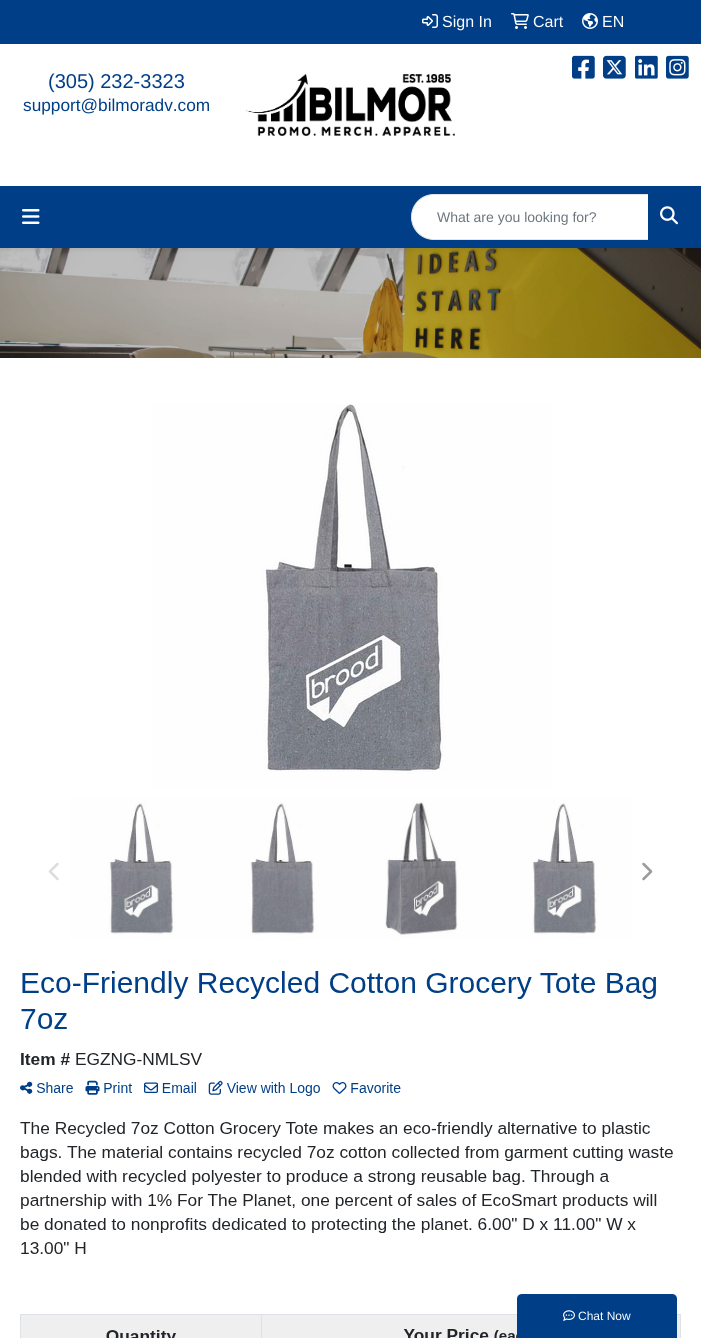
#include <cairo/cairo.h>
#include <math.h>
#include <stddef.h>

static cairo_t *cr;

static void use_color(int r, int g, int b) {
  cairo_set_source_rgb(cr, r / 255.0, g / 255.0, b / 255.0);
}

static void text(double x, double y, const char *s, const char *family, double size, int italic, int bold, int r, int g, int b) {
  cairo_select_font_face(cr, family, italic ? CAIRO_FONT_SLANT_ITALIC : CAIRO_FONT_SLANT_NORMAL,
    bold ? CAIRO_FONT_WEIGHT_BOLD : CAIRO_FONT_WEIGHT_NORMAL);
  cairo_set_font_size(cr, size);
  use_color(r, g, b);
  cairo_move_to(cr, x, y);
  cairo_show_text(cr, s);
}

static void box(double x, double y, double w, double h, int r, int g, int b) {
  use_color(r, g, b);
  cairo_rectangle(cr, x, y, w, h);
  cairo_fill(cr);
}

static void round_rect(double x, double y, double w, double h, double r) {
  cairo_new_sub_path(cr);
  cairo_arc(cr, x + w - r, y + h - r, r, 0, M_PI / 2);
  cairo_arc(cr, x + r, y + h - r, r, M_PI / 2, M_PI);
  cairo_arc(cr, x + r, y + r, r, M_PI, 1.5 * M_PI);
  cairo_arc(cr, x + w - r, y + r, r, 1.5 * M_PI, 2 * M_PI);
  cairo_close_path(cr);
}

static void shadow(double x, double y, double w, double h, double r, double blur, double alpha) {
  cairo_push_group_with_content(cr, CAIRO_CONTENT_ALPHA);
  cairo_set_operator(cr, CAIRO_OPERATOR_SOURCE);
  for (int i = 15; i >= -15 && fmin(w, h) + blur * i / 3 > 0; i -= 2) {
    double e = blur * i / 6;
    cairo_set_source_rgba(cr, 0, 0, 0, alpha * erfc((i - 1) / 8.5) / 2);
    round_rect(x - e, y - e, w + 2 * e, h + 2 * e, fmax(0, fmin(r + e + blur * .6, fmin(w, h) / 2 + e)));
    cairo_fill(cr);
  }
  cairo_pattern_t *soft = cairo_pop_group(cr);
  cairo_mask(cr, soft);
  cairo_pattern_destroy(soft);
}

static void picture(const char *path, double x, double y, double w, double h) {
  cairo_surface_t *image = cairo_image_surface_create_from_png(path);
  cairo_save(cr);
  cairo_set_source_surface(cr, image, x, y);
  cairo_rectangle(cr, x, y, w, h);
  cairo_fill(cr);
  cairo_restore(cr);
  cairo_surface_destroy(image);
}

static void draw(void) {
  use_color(255, 255, 255);
  cairo_paint(cr);
  box(0, 0, 701, 44, 0, 63, 135);
  picture("img_01.png", 422, 14, 16, 14);
  picture("img_02.png", 511, 13, 18, 16);
  picture("img_03.png", 582, 13, 16, 16);
  picture("img_04.png", 572, 55, 23, 24);
  picture("img_05.png", 603, 55, 23, 24);
  picture("img_06.png", 635, 55, 23, 24);
  picture("img_07.png", 666, 55, 23, 24);
  picture("img_08.png", 246, 74, 209, 62);
  picture("img_11.png", 0, 248, 701, 110);
  use_color(0, 0, 0);
  shadow(0, 188, 701, 62, 0, 2, 0.07);
  box(0, 186, 701, 62, 0, 63, 135);
  picture("img_09.png", 22, 209, 18, 15);
  use_color(255, 255, 255);
  cairo_new_path(cr);
  cairo_move_to(cr, 434, 194.5);
  cairo_line_to(cr, 648.5, 194.5);
  cairo_line_to(cr, 648.5, 239.5);
  cairo_line_to(cr, 434, 239.5);
  cairo_curve_to(cr, 421.5, 239.5, 411.5, 229.5, 411.5, 217);
  cairo_curve_to(cr, 411.5, 204.5, 421.5, 194.5, 434, 194.5);
  cairo_close_path(cr);
  cairo_fill_preserve(cr);
  use_color(228, 228, 228);
  cairo_set_line_width(cr, 1);
  cairo_stroke(cr);
  use_color(0, 63, 135);
  cairo_new_path(cr);
  cairo_move_to(cr, 648, 195);
  cairo_line_to(cr, 668, 195);
  cairo_curve_to(cr, 680, 195, 690, 205, 690, 217);
  cairo_curve_to(cr, 690, 229, 680, 239, 668, 239);
  cairo_line_to(cr, 648, 239);
  cairo_close_path(cr);
  cairo_fill(cr);
  cairo_set_fill_rule(cr, CAIRO_FILL_RULE_EVEN_ODD);
  cairo_new_path(cr);
  cairo_move_to(cr, 648, 194);
  cairo_line_to(cr, 668, 194);
  cairo_curve_to(cr, 681, 194, 691, 204, 691, 217);
  cairo_curve_to(cr, 691, 230, 681, 240, 668, 240);
  cairo_line_to(cr, 648, 240);
  cairo_close_path(cr);
  cairo_move_to(cr, 648, 195);
  cairo_line_to(cr, 668, 195);
  cairo_curve_to(cr, 680, 195, 690, 205, 690, 217);
  cairo_curve_to(cr, 690, 229, 680, 239, 668, 239);
  cairo_line_to(cr, 648, 239);
  cairo_close_path(cr);
  cairo_fill(cr);
  picture("img_10.png", 660, 206, 18, 19);
  picture("img_12.png", 20, 404, 661, 934);
  cairo_new_path(cr);
  cairo_move_to(cr, 522, 1294);
  cairo_line_to(cr, 672, 1294);
  cairo_curve_to(cr, 675, 1294, 677, 1296, 677, 1299);
  cairo_line_to(cr, 677, 1338);
  cairo_line_to(cr, 517, 1338);
  cairo_line_to(cr, 517, 1299);
  cairo_curve_to(cr, 517, 1296, 519, 1294, 522, 1294);
  cairo_close_path(cr);
  cairo_fill(cr);
  picture("img_13.png", 563, 1310, 12, 11);
  text(442, 27, "Sign In", "Liberation Sans", 16, 0, 0, 255, 255, 255);
  text(533, 27, "Cart", "Liberation Sans", 16, 0, 0, 255, 255, 255);
  text(602, 27, "EN", "Liberation Sans", 16, 0, 0, 255, 255, 255);
  text(48, 88, "(305) 232-3323", "Liberation Sans", 20, 0, 0, 0, 63, 135);
  text(23, 111, "support@bilmoradv.com", "Liberation Sans", 17.25, 0, 0, 0, 63, 135);
  text(437, 222, "What are you looking for?", "Liberation Sans", 14, 0, 0, 108, 117, 125);
  text(578, 1320, "Chat Now", "Liberation Sans", 12, 0, 0, 255, 255, 255);
}

int main(void) {
  cairo_surface_t *surface = cairo_image_surface_create(CAIRO_FORMAT_RGB24, 701, 1338);
  cr = cairo_create(surface);
  cairo_font_options_t *options = cairo_font_options_create();
  cairo_font_options_set_hint_metrics(options, CAIRO_HINT_METRICS_OFF);
  cairo_font_options_set_hint_style(options, CAIRO_HINT_STYLE_NONE);
  cairo_set_font_options(cr, options);
  cairo_set_miter_limit(cr, 4);
  draw();
  cairo_surface_write_to_png(surface, "out.png");
  cairo_font_options_destroy(options);
  cairo_destroy(cr);
  cairo_surface_destroy(surface);
  return 0;
}
